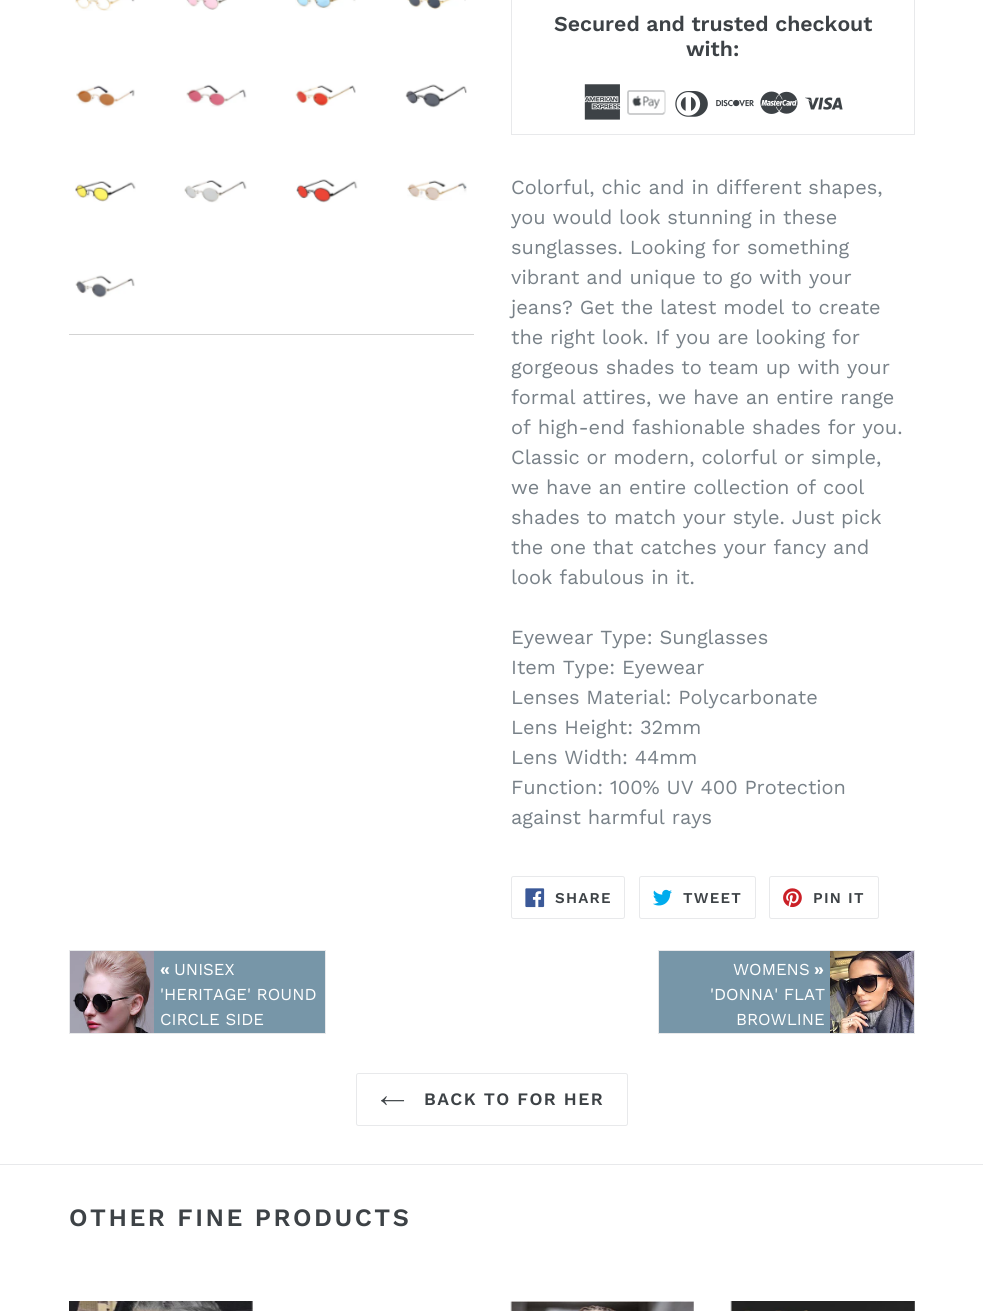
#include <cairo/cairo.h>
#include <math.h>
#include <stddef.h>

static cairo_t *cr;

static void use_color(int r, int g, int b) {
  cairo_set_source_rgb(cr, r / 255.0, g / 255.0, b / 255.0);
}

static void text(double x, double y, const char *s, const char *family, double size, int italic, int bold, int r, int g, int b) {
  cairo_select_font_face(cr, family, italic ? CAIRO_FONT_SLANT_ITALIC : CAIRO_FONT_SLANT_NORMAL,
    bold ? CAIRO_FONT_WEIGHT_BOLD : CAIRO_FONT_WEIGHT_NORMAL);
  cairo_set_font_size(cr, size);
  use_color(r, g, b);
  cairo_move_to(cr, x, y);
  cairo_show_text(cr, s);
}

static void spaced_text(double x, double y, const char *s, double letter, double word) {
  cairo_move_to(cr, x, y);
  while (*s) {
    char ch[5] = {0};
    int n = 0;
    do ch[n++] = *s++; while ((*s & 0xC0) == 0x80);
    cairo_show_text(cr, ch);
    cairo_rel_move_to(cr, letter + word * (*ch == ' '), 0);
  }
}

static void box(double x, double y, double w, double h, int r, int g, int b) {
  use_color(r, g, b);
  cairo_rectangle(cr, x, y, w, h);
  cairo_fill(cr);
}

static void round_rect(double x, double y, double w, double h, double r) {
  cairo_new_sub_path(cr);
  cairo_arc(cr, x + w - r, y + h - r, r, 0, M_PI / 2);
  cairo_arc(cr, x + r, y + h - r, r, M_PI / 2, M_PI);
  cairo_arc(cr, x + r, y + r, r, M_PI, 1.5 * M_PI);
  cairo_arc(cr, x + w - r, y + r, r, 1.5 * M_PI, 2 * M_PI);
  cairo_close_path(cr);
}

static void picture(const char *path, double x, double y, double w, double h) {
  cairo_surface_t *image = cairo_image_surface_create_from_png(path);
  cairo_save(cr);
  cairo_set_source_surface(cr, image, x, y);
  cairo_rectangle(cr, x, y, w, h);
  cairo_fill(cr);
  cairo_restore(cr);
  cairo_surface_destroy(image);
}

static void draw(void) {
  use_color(255, 255, 255);
  cairo_paint(cr);
  box(69, 334, 405, 1, 211, 211, 211);
  picture("img_01.png", 75, 0, 60, 11);
  picture("img_02.png", 186, 0, 41, 10);
  picture("img_03.png", 295, 0, 61, 9);
  picture("img_04.png", 407, 0, 59, 10);
  picture("img_05.png", 76, 85, 59, 23);
  picture("img_06.png", 186, 84, 61, 23);
  picture("img_07.png", 295, 85, 61, 21);
  picture("img_08.png", 405, 84, 62, 24);
  picture("img_09.png", 75, 181, 61, 21);
  picture("img_10.png", 184, 180, 63, 23);
  picture("img_11.png", 296, 179, 62, 24);
  picture("img_12.png", 407, 180, 60, 21);
  picture("img_13.png", 75, 275, 60, 23);
  cairo_rectangle(cr, 511.5, -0.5, 403, 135);
  use_color(232, 233, 235);
  cairo_set_line_width(cr, 1);
  cairo_stroke(cr);
  picture("img_14.png", 584, 84, 37, 36);
  picture("img_15.png", 627, 90, 39, 25);
  picture("img_16.png", 675, 91, 33, 26);
  picture("img_17.png", 716, 99, 38, 8);
  picture("img_18.png", 760, 91, 38, 23);
  picture("img_19.png", 805, 97, 38, 13);
  round_rect(511.5, 876.5, 113, 42, 2);
  cairo_stroke(cr);
  picture("img_20.png", 525, 888, 20, 20);
  round_rect(639.5, 876.5, 116, 42, 2);
  cairo_stroke(cr);
  picture("img_21.png", 653, 889, 19, 17);
  round_rect(769.5, 876.5, 109, 42, 2);
  cairo_stroke(cr);
  picture("img_22.png", 783, 888, 19, 20);
  box(154, 951, 171, 82, 119, 150, 168);
  cairo_rectangle(cr, 69.5, 950.5, 256, 83);
  use_color(232, 233, 235);
  cairo_stroke(cr);
  picture("img_23.png", 70, 951, 84, 82);
  box(659, 951, 171, 82, 119, 150, 168);
  cairo_rectangle(cr, 658.5, 950.5, 256, 83);
  use_color(232, 233, 235);
  cairo_stroke(cr);
  picture("img_24.png", 830, 951, 84, 82);
  round_rect(356.5, 1073.5, 271, 52, 2);
  cairo_stroke(cr);
  picture("img_25.png", 381, 1096, 24, 10);
  box(0, 1164, 983, 1, 232, 233, 235);
  picture("img_26.png", 69, 1301, 184, 10);
  picture("img_27.png", 510, 1301, 184, 10);
  picture("img_28.png", 730, 1301, 185, 10);
  text(554, 31, "Secured and trusted checkout", "Work Sans SemiBold", 21.25, 0, 0, 61, 66, 70);
  text(686, 56, "with:", "Work Sans SemiBold", 21.25, 0, 0, 61, 66, 70);
  text(511, 194, "Colorful, chic and in different shapes,", "Work Sans", 20, 0, 0, 120, 129, 136);
  text(511, 224, "you would look stunning in these", "Work Sans", 20, 0, 0, 120, 129, 136);
  text(511, 254, "sunglasses. Looking for something", "Work Sans", 20, 0, 0, 120, 129, 136);
  text(511, 284, "vibrant and unique to go with your", "Work Sans", 20, 0, 0, 120, 129, 136);
  text(511, 314, "jeans? Get the latest model to create", "Work Sans", 20, 0, 0, 120, 129, 136);
  text(511, 344, "the right look. If you are looking for", "Work Sans", 20, 0, 0, 120, 129, 136);
  text(511, 374, "gorgeous shades to team up with your", "Work Sans", 20, 0, 0, 120, 129, 136);
  text(511, 404, "formal attires, we have an entire range", "Work Sans", 20, 0, 0, 120, 129, 136);
  text(511, 434, "of high-end fashionable shades for you.", "Work Sans", 20, 0, 0, 120, 129, 136);
  text(511, 464, "Classic or modern, colorful or simple,", "Work Sans", 20, 0, 0, 120, 129, 136);
  text(511, 494, "we have an entire collection of cool", "Work Sans", 20, 0, 0, 120, 129, 136);
  text(511, 524, "shades to match your style. Just pick", "Work Sans", 20, 0, 0, 120, 129, 136);
  text(511, 554, "the one that catches your fancy and", "Work Sans", 20, 0, 0, 120, 129, 136);
  text(511, 584, "look fabulous in it.", "Work Sans", 20, 0, 0, 120, 129, 136);
  text(511, 644, "Eyewear Type: Sunglasses", "Work Sans", 20, 0, 0, 120, 129, 136);
  text(511, 674, "Item Type: Eyewear", "Work Sans", 20, 0, 0, 120, 129, 136);
  text(511, 704, "Lenses Material: Polycarbonate", "Work Sans", 20, 0, 0, 120, 129, 136);
  text(511, 734, "Lens Height: 32mm", "Work Sans", 20, 0, 0, 120, 129, 136);
  text(511, 764, "Lens Width: 44mm", "Work Sans", 20, 0, 0, 120, 129, 136);
  text(511, 794, "Function: 100% UV 400 Protection", "Work Sans", 20, 0, 0, 120, 129, 136);
  text(511, 824, "against harmful rays", "Work Sans", 20, 0, 0, 120, 129, 136);
  cairo_select_font_face(cr, "Work Sans SemiBold", CAIRO_FONT_SLANT_NORMAL, CAIRO_FONT_WEIGHT_NORMAL);
  cairo_set_font_size(cr, 15);
  use_color(61, 66, 70);
  spaced_text(555, 903, "SHARE", 1.25, 0);
  spaced_text(683, 903, "TWEET", 1.25, 0);
  spaced_text(813, 903, "PIN IT", 1.25, 0);
  text(160, 975, "«", "Work Sans", 16.75, 0, 1, 255, 255, 255);
  text(174, 975, "UNISEX", "Work Sans", 16.75, 0, 0, 255, 255, 255);
  text(160, 1000, "'HERITAGE' ROUND", "Work Sans", 16.75, 0, 0, 255, 255, 255);
  text(160, 1025, "CIRCLE SIDE", "Work Sans", 16.75, 0, 0, 255, 255, 255);
  text(733, 975, "WOMENS", "Work Sans", 16.75, 0, 0, 255, 255, 255);
  text(814, 975, "»", "Work Sans", 16.75, 0, 1, 255, 255, 255);
  text(710, 1000, "'DONNA' FLAT", "Work Sans", 16.75, 0, 0, 255, 255, 255);
  text(736, 1025, "BROWLINE", "Work Sans", 16.75, 0, 0, 255, 255, 255);
  cairo_select_font_face(cr, "Work Sans SemiBold", CAIRO_FONT_SLANT_NORMAL, CAIRO_FONT_WEIGHT_NORMAL);
  cairo_set_font_size(cr, 17.5);
  use_color(61, 66, 70);
  spaced_text(424, 1105, "BACK TO FOR HER", 1.4, 0);
  cairo_set_font_size(cr, 25);
  spaced_text(69, 1226, "OTHER FINE PRODUCTS", 2.5, 0);
}

int main(void) {
  cairo_surface_t *surface = cairo_image_surface_create(CAIRO_FORMAT_RGB24, 983, 1311);
  cr = cairo_create(surface);
  cairo_font_options_t *options = cairo_font_options_create();
  cairo_font_options_set_hint_metrics(options, CAIRO_HINT_METRICS_OFF);
  cairo_font_options_set_hint_style(options, CAIRO_HINT_STYLE_NONE);
  cairo_set_font_options(cr, options);
  cairo_set_miter_limit(cr, 4);
  draw();
  cairo_surface_write_to_png(surface, "out.png");
  cairo_font_options_destroy(options);
  cairo_destroy(cr);
  cairo_surface_destroy(surface);
  return 0;
}
